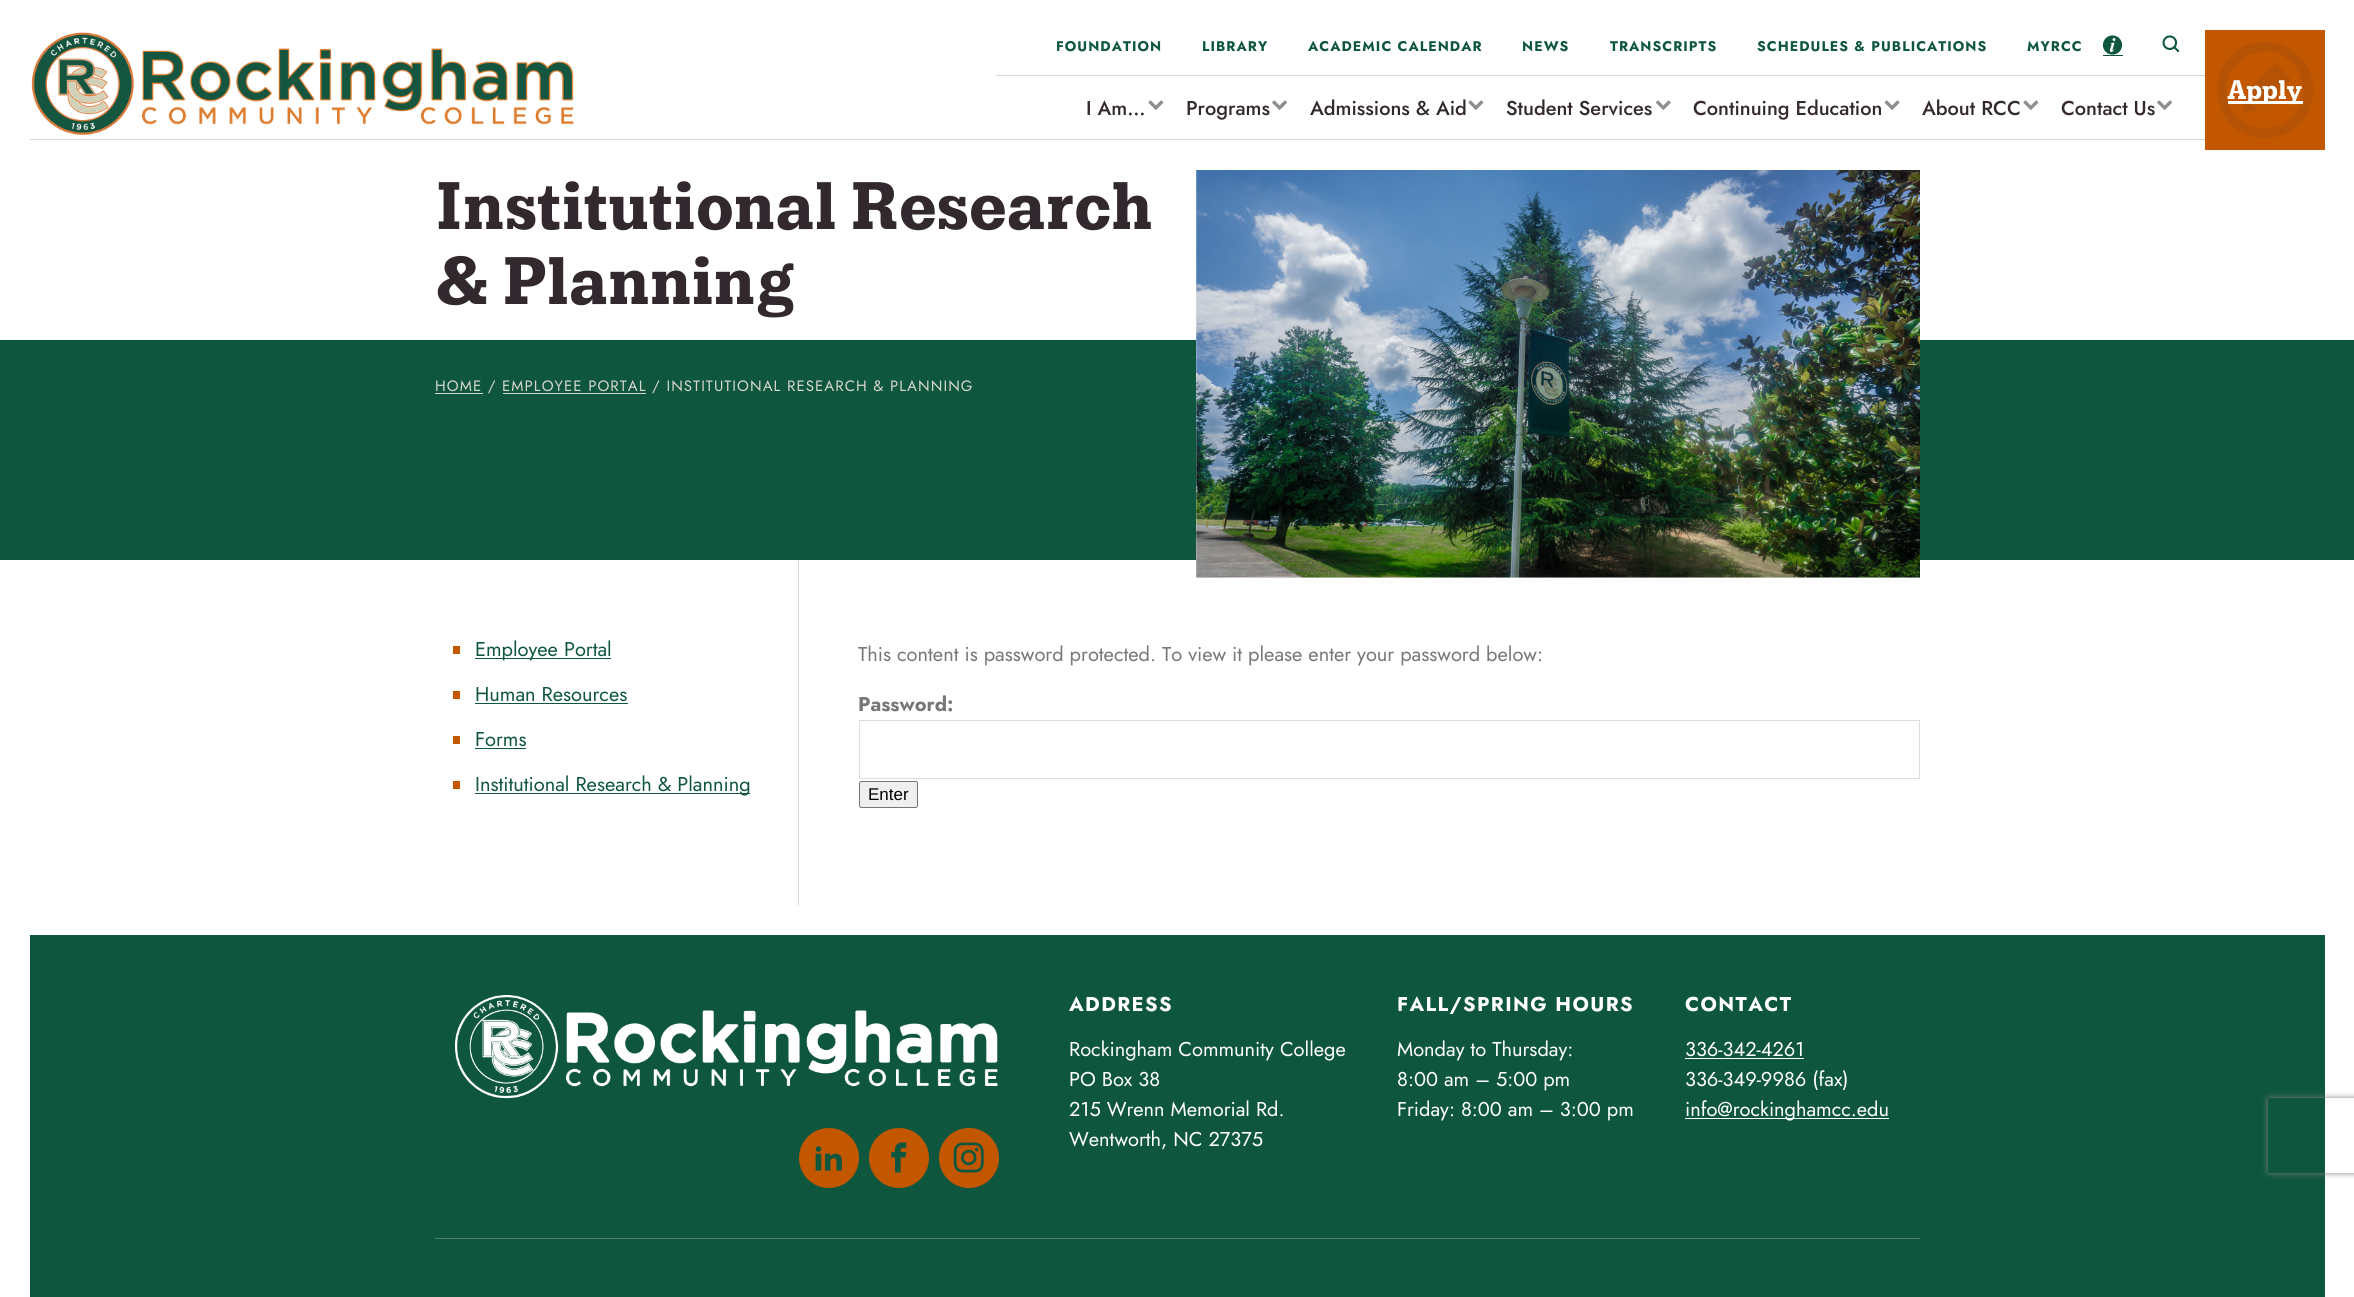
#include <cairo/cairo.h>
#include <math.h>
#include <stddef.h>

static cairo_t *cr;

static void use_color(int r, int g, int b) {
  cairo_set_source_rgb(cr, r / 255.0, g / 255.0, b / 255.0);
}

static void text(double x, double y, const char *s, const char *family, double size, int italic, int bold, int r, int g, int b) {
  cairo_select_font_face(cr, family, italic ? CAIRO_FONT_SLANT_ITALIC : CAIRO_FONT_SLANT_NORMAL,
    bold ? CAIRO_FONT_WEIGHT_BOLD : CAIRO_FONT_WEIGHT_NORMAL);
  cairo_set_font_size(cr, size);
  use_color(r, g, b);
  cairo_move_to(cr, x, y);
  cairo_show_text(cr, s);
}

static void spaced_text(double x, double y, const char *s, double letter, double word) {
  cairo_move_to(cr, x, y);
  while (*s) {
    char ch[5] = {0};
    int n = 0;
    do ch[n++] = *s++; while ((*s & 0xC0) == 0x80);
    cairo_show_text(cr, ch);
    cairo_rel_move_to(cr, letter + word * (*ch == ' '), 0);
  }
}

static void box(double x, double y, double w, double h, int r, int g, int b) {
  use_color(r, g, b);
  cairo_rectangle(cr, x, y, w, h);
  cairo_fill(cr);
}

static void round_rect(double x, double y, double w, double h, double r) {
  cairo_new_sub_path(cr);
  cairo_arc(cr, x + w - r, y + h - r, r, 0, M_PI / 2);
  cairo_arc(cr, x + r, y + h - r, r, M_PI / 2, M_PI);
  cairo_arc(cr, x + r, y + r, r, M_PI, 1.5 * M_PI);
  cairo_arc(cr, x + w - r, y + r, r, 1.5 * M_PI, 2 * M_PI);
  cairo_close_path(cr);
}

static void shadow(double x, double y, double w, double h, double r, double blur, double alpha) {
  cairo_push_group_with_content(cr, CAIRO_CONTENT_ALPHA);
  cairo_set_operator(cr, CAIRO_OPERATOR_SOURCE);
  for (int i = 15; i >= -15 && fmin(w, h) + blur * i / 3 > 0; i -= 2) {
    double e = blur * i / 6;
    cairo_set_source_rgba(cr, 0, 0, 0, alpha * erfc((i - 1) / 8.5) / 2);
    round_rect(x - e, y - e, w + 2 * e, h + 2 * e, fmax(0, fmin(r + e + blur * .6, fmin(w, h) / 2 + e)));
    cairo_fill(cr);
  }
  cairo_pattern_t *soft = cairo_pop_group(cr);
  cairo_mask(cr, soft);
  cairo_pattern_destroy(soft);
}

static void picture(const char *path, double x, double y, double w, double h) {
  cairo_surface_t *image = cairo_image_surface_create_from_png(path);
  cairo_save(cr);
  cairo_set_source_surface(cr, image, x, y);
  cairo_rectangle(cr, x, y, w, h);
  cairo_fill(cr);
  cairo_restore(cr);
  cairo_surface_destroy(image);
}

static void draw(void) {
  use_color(255, 255, 255);
  cairo_paint(cr);
  box(30, 139, 2175, 1, 216, 215, 206);
  picture("img_01.png", 31, 32, 543, 103);
  box(996, 75, 1209, 1, 216, 215, 206);
  picture("img_02.png", 2102, 35, 21, 20);
  box(2103, 55, 20, 1, 15, 86, 63);
  picture("img_03.png", 2162, 35, 18, 18);
  picture("img_04.png", 1148, 100, 16, 10);
  picture("img_05.png", 1272, 100, 15, 10);
  picture("img_04.png", 1468, 100, 16, 10);
  picture("img_06.png", 1655, 100, 16, 10);
  picture("img_07.png", 1884, 100, 16, 10);
  picture("img_04.png", 2023, 100, 16, 10);
  picture("img_05.png", 2157, 100, 15, 10);
  box(2205, 30, 120, 120, 194, 87, 0);
  use_color(180, 82, 5);
  cairo_new_path(cr);
  cairo_move_to(cr, 2265, 42);
  cairo_curve_to(cr, 2255, 42, 2246, 45, 2238, 50);
  cairo_curve_to(cr, 2199, 77, 2218, 138, 2265, 138);
  cairo_curve_to(cr, 2311, 138, 2331, 79, 2294, 52);
  cairo_curve_to(cr, 2285, 45, 2275, 42, 2265, 42);
  cairo_close_path(cr);
  cairo_move_to(cr, 2265, 128);
  cairo_curve_to(cr, 2255, 128, 2246, 125, 2239, 118);
  cairo_curve_to(cr, 2205, 87, 2245, 33, 2285, 57);
  cairo_curve_to(cr, 2296, 64, 2303, 76, 2303, 88);
  cairo_curve_to(cr, 2304, 110, 2287, 128, 2265, 128);
  cairo_close_path(cr);
  cairo_move_to(cr, 2243, 111);
  cairo_line_to(cr, 2259, 111);
  cairo_line_to(cr, 2243, 95);
  cairo_close_path(cr);
  cairo_move_to(cr, 2249, 90);
  cairo_line_to(cr, 2275, 63);
  cairo_line_to(cr, 2291, 79);
  cairo_line_to(cr, 2265, 106);
  cairo_close_path(cr);
  cairo_fill(cr);
  box(2228, 101, 75, 3, 255, 255, 255);
  box(0, 340, 2354, 220, 15, 86, 63);
  box(1196, 170, 724, 408, 239, 239, 239);
  picture("img_08.png", 1196, 170, 724, 408);
  box(435, 393, 48, 1, 216, 215, 206);
  box(503, 393, 143, 1, 216, 215, 206);
  box(453, 646, 7, 8, 194, 87, 0);
  box(475, 658, 136, 1, 15, 86, 63);
  box(453, 691, 7, 8, 194, 87, 0);
  box(475, 703, 153, 1, 15, 86, 63);
  box(453, 736, 7, 8, 194, 87, 0);
  box(475, 748, 51, 1, 15, 86, 63);
  box(453, 781, 7, 8, 194, 87, 0);
  box(475, 793, 275, 1, 15, 86, 63);
  box(798, 560, 1, 345, 216, 215, 206);
  cairo_rectangle(cr, 859.5, 720.5, 1060, 58);
  use_color(221, 221, 221);
  cairo_set_line_width(cr, 1);
  cairo_stroke(cr);
  use_color(239, 239, 239);
  round_rect(859.5, 781.5, 58, 26, 2);
  cairo_fill_preserve(cr);
  use_color(118, 118, 118);
  cairo_stroke(cr);
  box(30, 935, 2295, 362, 15, 86, 63);
  picture("img_09.png", 455, 995, 543, 104);
  use_color(194, 87, 0);
  cairo_arc(cr, 829, 1158, 30, 0, 2 * M_PI);
  cairo_fill(cr);
  picture("img_10.png", 815, 1146, 27, 25);
  cairo_arc(cr, 899, 1158, 30, 0, 2 * M_PI);
  cairo_fill(cr);
  picture("img_11.png", 891, 1142, 16, 31);
  cairo_arc(cr, 969, 1158, 30, 0, 2 * M_PI);
  cairo_fill(cr);
  picture("img_12.png", 953, 1142, 31, 31);
  box(1685, 1058, 119, 1, 255, 255, 255);
  box(1685, 1118, 204, 1, 255, 255, 255);
  box(435, 1238, 1485, 1, 75, 125, 106);
  cairo_save(cr);
  cairo_set_fill_rule(cr, CAIRO_FILL_RULE_EVEN_ODD);
  cairo_new_path(cr);
  cairo_move_to(cr, 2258, 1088);
  cairo_line_to(cr, 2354, 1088);
  cairo_line_to(cr, 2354, 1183);
  cairo_line_to(cr, 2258, 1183);
  cairo_close_path(cr);
  cairo_move_to(cr, 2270.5, 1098);
  cairo_line_to(cr, 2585.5, 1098);
  cairo_curve_to(cr, 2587, 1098, 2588, 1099, 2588, 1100.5);
  cairo_line_to(cr, 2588, 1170.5);
  cairo_curve_to(cr, 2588, 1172, 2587, 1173, 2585.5, 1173);
  cairo_line_to(cr, 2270.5, 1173);
  cairo_curve_to(cr, 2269, 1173, 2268, 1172, 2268, 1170.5);
  cairo_line_to(cr, 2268, 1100.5);
  cairo_curve_to(cr, 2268, 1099, 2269, 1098, 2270.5, 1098);
  cairo_close_path(cr);
  cairo_clip(cr);
  use_color(128, 128, 128);
  shadow(2268, 1098, 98, 75, 2.5, 3, 1);
  cairo_restore(cr);
  cairo_select_font_face(cr, "Jost", CAIRO_FONT_SLANT_NORMAL, CAIRO_FONT_WEIGHT_BOLD);
  cairo_set_font_size(cr, 14);
  use_color(15, 86, 63);
  spaced_text(1056, 51, "FOUNDATION", 1.05, 0);
  spaced_text(1202, 51, "LIBRARY", 1.05, 0);
  spaced_text(1308, 51, "ACADEMIC CALENDAR", 1.05, 0);
  spaced_text(1522, 51, "NEWS", 1.05, 0);
  spaced_text(1610, 51, "TRANSCRIPTS", 1.05, 0);
  spaced_text(1757, 51, "SCHEDULES & PUBLICATIONS", 1.05, 0);
  spaced_text(2027, 51, "MYRCC", 1.05, 0);
  text(1086, 115, "I Am…", "Jost Medium", 20, 0, 0, 50, 41, 47);
  text(1186, 115, "Programs", "Jost Medium", 20, 0, 0, 50, 41, 47);
  text(1310, 115, "Admissions & Aid", "Jost Medium", 20, 0, 0, 50, 41, 47);
  text(1506, 115, "Student Services", "Jost Medium", 20, 0, 0, 50, 41, 47);
  text(1693, 115, "Continuing Education", "Jost Medium", 20, 0, 0, 50, 41, 47);
  text(1922, 115, "About RCC", "Jost Medium", 20, 0, 0, 50, 41, 47);
  text(2061, 115, "Contact Us", "Jost Medium", 20, 0, 0, 50, 41, 47);
  text(2227, 99, "Apply", "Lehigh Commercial", 30, 0, 1, 255, 255, 255);
  text(435, 229, "Institutional Research", "Lehigh Commercial", 75, 0, 1, 50, 41, 47);
  text(435, 304, "& Planning", "Lehigh Commercial", 75, 0, 1, 50, 41, 47);
  cairo_select_font_face(cr, "Jost", CAIRO_FONT_SLANT_NORMAL, CAIRO_FONT_WEIGHT_NORMAL);
  cairo_set_font_size(cr, 15);
  use_color(216, 215, 206);
  spaced_text(435, 391, "HOME / EMPLOYEE PORTAL / INSTITUTIONAL RESEARCH & PLANNING", 1.05, 0);
  text(475, 656, "Employee Portal", "Jost", 20, 0, 0, 15, 86, 63);
  text(475, 701, "Human Resources", "Jost", 20, 0, 0, 15, 86, 63);
  text(475, 746, "Forms", "Jost", 20, 0, 0, 15, 86, 63);
  text(475, 791, "Institutional Research & Planning", "Jost", 20, 0, 0, 15, 86, 63);
  text(858, 661, "This content is password protected. To view it please enter your password below:", "Jost", 20, 0, 0, 120, 118, 118);
  text(858, 711, "Password:", "Jost", 20, 0, 1, 120, 118, 118);
  text(868, 800, "Enter", "Liberation Sans", 17, 0, 0, 0, 0, 0);
  cairo_select_font_face(cr, "Jost", CAIRO_FONT_SLANT_NORMAL, CAIRO_FONT_WEIGHT_BOLD);
  cairo_set_font_size(cr, 20);
  use_color(255, 255, 255);
  spaced_text(1069, 1011, "ADDRESS", 1.4, 0);
  text(1069, 1056, "Rockingham Community College", "Jost", 20, 0, 0, 255, 255, 255);
  text(1069, 1086, "PO Box 38", "Jost", 20, 0, 0, 255, 255, 255);
  text(1069, 1116, "215 Wrenn Memorial Rd.", "Jost", 20, 0, 0, 255, 255, 255);
  text(1069, 1146, "Wentworth, NC 27375", "Jost", 20, 0, 0, 255, 255, 255);
  cairo_select_font_face(cr, "Jost", CAIRO_FONT_SLANT_NORMAL, CAIRO_FONT_WEIGHT_BOLD);
  spaced_text(1397, 1011, "FALL/SPRING HOURS", 1.4, 0);
  text(1397, 1056, "Monday to Thursday:", "Jost", 20, 0, 0, 255, 255, 255);
  text(1397, 1086, "8:00 am – 5:00 pm", "Jost", 20, 0, 0, 255, 255, 255);
  text(1397, 1116, "Friday: 8:00 am – 3:00 pm", "Jost", 20, 0, 0, 255, 255, 255);
  cairo_select_font_face(cr, "Jost", CAIRO_FONT_SLANT_NORMAL, CAIRO_FONT_WEIGHT_BOLD);
  spaced_text(1685, 1011, "CONTACT", 1.4, 0);
  text(1685, 1056, "336-342-4261", "Jost", 20, 0, 0, 255, 255, 255);
  text(1685, 1086, "336-349-9986 (fax)", "Jost", 20, 0, 0, 255, 255, 255);
  text(1685, 1116, "info@rockinghamcc.edu", "Jost", 20, 0, 0, 255, 255, 255);
}

int main(void) {
  cairo_surface_t *surface = cairo_image_surface_create(CAIRO_FORMAT_RGB24, 2354, 1297);
  cr = cairo_create(surface);
  cairo_font_options_t *options = cairo_font_options_create();
  cairo_font_options_set_hint_metrics(options, CAIRO_HINT_METRICS_OFF);
  cairo_font_options_set_hint_style(options, CAIRO_HINT_STYLE_NONE);
  cairo_set_font_options(cr, options);
  cairo_set_miter_limit(cr, 4);
  draw();
  cairo_surface_write_to_png(surface, "out.png");
  cairo_font_options_destroy(options);
  cairo_destroy(cr);
  cairo_surface_destroy(surface);
  return 0;
}
